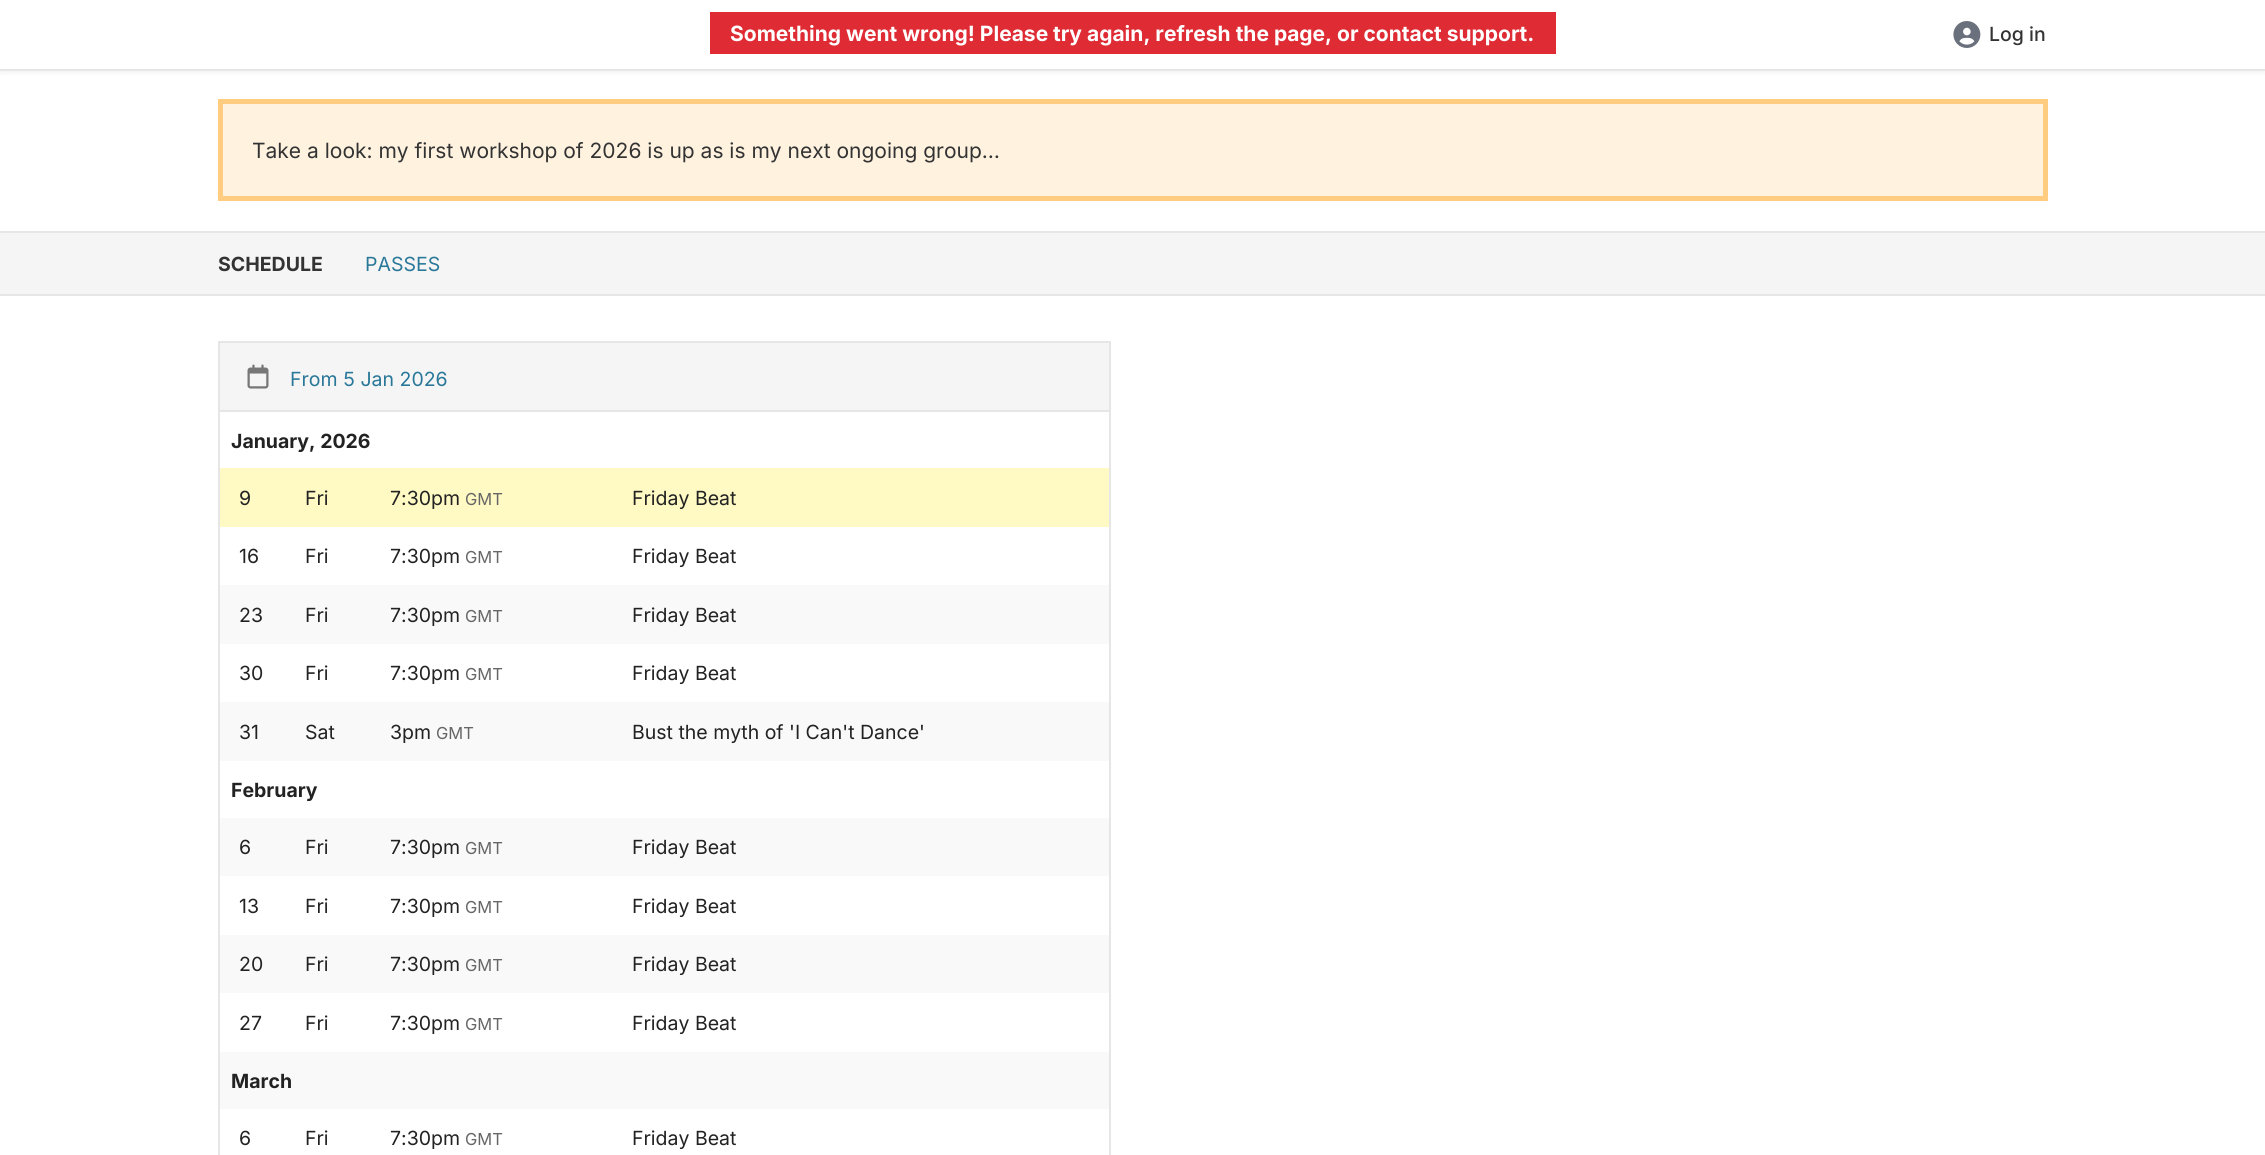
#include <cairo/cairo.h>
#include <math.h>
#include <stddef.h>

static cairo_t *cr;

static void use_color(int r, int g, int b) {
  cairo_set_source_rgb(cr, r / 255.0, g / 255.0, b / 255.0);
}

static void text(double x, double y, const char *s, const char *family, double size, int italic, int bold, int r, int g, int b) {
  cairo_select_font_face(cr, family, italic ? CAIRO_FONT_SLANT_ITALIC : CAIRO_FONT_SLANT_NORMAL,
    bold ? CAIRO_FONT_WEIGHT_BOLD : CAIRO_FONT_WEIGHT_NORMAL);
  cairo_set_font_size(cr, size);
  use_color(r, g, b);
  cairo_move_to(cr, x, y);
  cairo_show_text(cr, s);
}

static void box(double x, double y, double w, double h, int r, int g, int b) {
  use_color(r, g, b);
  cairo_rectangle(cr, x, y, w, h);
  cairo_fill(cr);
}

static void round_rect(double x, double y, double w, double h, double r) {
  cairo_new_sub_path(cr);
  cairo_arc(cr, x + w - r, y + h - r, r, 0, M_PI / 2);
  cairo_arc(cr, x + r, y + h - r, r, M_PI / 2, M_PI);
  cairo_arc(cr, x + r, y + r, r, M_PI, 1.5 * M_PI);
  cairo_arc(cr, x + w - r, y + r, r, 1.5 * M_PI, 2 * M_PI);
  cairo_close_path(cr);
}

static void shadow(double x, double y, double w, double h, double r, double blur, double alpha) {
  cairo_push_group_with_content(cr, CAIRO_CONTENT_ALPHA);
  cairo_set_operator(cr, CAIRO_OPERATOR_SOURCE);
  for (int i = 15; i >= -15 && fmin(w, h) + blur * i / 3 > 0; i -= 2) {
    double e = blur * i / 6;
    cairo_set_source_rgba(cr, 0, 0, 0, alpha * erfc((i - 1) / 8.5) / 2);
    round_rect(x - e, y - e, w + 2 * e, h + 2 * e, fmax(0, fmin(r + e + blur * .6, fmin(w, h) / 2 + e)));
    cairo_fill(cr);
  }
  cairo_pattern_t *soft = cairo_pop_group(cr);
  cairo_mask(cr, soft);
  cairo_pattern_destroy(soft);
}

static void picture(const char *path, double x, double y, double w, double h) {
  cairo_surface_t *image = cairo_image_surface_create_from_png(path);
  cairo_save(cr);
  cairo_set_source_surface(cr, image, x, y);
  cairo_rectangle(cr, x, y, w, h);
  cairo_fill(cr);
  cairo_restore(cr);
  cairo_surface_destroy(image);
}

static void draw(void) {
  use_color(255, 255, 255);
  cairo_paint(cr);
  cairo_save(cr);
  cairo_rectangle(cr, 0, 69, 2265, 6);
  cairo_clip(cr);
  use_color(50, 50, 50);
  shadow(0, 2, 2265, 69, 0, 4.5, 0.1);
  cairo_restore(cr);
  box(710, 12, 846, 42, 222, 43, 52);
  cairo_set_source_rgba(cr, 0.392, 0.392, 0.392, 0.1);
  cairo_rectangle(cr, 0, 69, 2265, 2);
  cairo_fill(cr);
  picture("img_01.png", 1953, 21, 28, 27);
  use_color(255, 243, 224);
  cairo_rectangle(cr, 220.5, 101.5, 1825, 97);
  cairo_fill_preserve(cr);
  use_color(255, 204, 128);
  cairo_set_line_width(cr, 5);
  cairo_stroke(cr);
  box(0, 233, 2265, 61, 245, 245, 245);
  box(0, 231, 2265, 2, 230, 230, 230);
  box(0, 294, 2265, 2, 230, 230, 230);
  box(218, 341, 892, 2, 230, 230, 230);
  box(1109, 341, 2, 814, 230, 230, 230);
  box(218, 341, 2, 814, 230, 230, 230);
  box(220, 343, 889, 67, 245, 245, 245);
  box(218, 410, 892, 2, 230, 230, 230);
  picture("img_02.png", 247, 364, 22, 25);
  box(220, 468, 889, 59, 255, 249, 196);
  box(220, 585, 889, 59, 249, 249, 249);
  box(220, 702, 889, 59, 249, 249, 249);
  box(220, 818, 889, 58, 249, 249, 249);
  box(220, 935, 889, 58, 249, 249, 249);
  box(220, 1052, 889, 57, 249, 249, 249);
  text(730, 41, "Something went wrong! Please try again, refresh the page, or contact support.", "Inter", 21, 0, 1, 255, 255, 255);
  text(1989, 41, "Log in", "Inter Medium", 19.5, 0, 0, 51, 51, 51);
  text(252, 158, "Take a look: my first workshop of 2026 is up as is my next ongoing group…", "Inter", 21, 0, 0, 51, 51, 51);
  text(218, 271, "SCHEDULE", "Inter", 19.5, 0, 1, 51, 51, 51);
  text(365, 271, "PASSES", "Inter", 19.5, 0, 0, 41, 119, 153);
  text(290, 386, "From 5 Jan 2026", "Inter", 19.5, 0, 0, 41, 119, 153);
  text(231, 448, "January, 2026", "Inter", 19.5, 0, 1, 34, 34, 34);
  text(239, 505, "9", "Inter", 19.5, 0, 0, 34, 34, 34);
  text(305, 505, "Fri", "Inter", 19.5, 0, 0, 34, 34, 34);
  text(390, 505, "7:30pm", "Inter", 19.5, 0, 0, 34, 34, 34);
  text(465, 505, "GMT", "Inter", 16.5, 0, 0, 102, 102, 102);
  text(632, 505, "Friday Beat", "Inter", 19.5, 0, 0, 34, 34, 34);
  text(239, 563, "16", "Inter", 19.5, 0, 0, 34, 34, 34);
  text(305, 563, "Fri", "Inter", 19.5, 0, 0, 34, 34, 34);
  text(390, 563, "7:30pm", "Inter", 19.5, 0, 0, 34, 34, 34);
  text(465, 563, "GMT", "Inter", 16.5, 0, 0, 102, 102, 102);
  text(632, 563, "Friday Beat", "Inter", 19.5, 0, 0, 34, 34, 34);
  text(239, 622, "23", "Inter", 19.5, 0, 0, 34, 34, 34);
  text(305, 622, "Fri", "Inter", 19.5, 0, 0, 34, 34, 34);
  text(390, 622, "7:30pm", "Inter", 19.5, 0, 0, 34, 34, 34);
  text(465, 622, "GMT", "Inter", 16.5, 0, 0, 102, 102, 102);
  text(632, 622, "Friday Beat", "Inter", 19.5, 0, 0, 34, 34, 34);
  text(239, 680, "30", "Inter", 19.5, 0, 0, 34, 34, 34);
  text(305, 680, "Fri", "Inter", 19.5, 0, 0, 34, 34, 34);
  text(390, 680, "7:30pm", "Inter", 19.5, 0, 0, 34, 34, 34);
  text(465, 680, "GMT", "Inter", 16.5, 0, 0, 102, 102, 102);
  text(632, 680, "Friday Beat", "Inter", 19.5, 0, 0, 34, 34, 34);
  text(239, 739, "31", "Inter", 19.5, 0, 0, 34, 34, 34);
  text(305, 739, "Sat", "Inter", 19.5, 0, 0, 34, 34, 34);
  text(390, 739, "3pm", "Inter", 19.5, 0, 0, 34, 34, 34);
  text(436, 739, "GMT", "Inter", 16.5, 0, 0, 102, 102, 102);
  text(632, 739, "Bust the myth of 'I Can't Dance'", "Inter", 19.5, 0, 0, 34, 34, 34);
  text(231, 797, "February", "Inter", 19.5, 0, 1, 34, 34, 34);
  text(239, 854, "6", "Inter", 19.5, 0, 0, 34, 34, 34);
  text(305, 854, "Fri", "Inter", 19.5, 0, 0, 34, 34, 34);
  text(390, 854, "7:30pm", "Inter", 19.5, 0, 0, 34, 34, 34);
  text(465, 854, "GMT", "Inter", 16.5, 0, 0, 102, 102, 102);
  text(632, 854, "Friday Beat", "Inter", 19.5, 0, 0, 34, 34, 34);
  text(239, 913, "13", "Inter", 19.5, 0, 0, 34, 34, 34);
  text(305, 913, "Fri", "Inter", 19.5, 0, 0, 34, 34, 34);
  text(390, 913, "7:30pm", "Inter", 19.5, 0, 0, 34, 34, 34);
  text(465, 913, "GMT", "Inter", 16.5, 0, 0, 102, 102, 102);
  text(632, 913, "Friday Beat", "Inter", 19.5, 0, 0, 34, 34, 34);
  text(239, 971, "20", "Inter", 19.5, 0, 0, 34, 34, 34);
  text(305, 971, "Fri", "Inter", 19.5, 0, 0, 34, 34, 34);
  text(390, 971, "7:30pm", "Inter", 19.5, 0, 0, 34, 34, 34);
  text(465, 971, "GMT", "Inter", 16.5, 0, 0, 102, 102, 102);
  text(632, 971, "Friday Beat", "Inter", 19.5, 0, 0, 34, 34, 34);
  text(239, 1030, "27", "Inter", 19.5, 0, 0, 34, 34, 34);
  text(305, 1030, "Fri", "Inter", 19.5, 0, 0, 34, 34, 34);
  text(390, 1030, "7:30pm", "Inter", 19.5, 0, 0, 34, 34, 34);
  text(465, 1030, "GMT", "Inter", 16.5, 0, 0, 102, 102, 102);
  text(632, 1030, "Friday Beat", "Inter", 19.5, 0, 0, 34, 34, 34);
  text(231, 1088, "March", "Inter", 19.5, 0, 1, 34, 34, 34);
  text(239, 1145, "6", "Inter", 19.5, 0, 0, 34, 34, 34);
  text(305, 1145, "Fri", "Inter", 19.5, 0, 0, 34, 34, 34);
  text(390, 1145, "7:30pm", "Inter", 19.5, 0, 0, 34, 34, 34);
  text(465, 1145, "GMT", "Inter", 16.5, 0, 0, 102, 102, 102);
  text(632, 1145, "Friday Beat", "Inter", 19.5, 0, 0, 34, 34, 34);
}

int main(void) {
  cairo_surface_t *surface = cairo_image_surface_create(CAIRO_FORMAT_RGB24, 2265, 1155);
  cr = cairo_create(surface);
  cairo_font_options_t *options = cairo_font_options_create();
  cairo_font_options_set_hint_metrics(options, CAIRO_HINT_METRICS_OFF);
  cairo_font_options_set_hint_style(options, CAIRO_HINT_STYLE_NONE);
  cairo_set_font_options(cr, options);
  cairo_set_miter_limit(cr, 4);
  draw();
  cairo_surface_write_to_png(surface, "out.png");
  cairo_font_options_destroy(options);
  cairo_destroy(cr);
  cairo_surface_destroy(surface);
  return 0;
}
